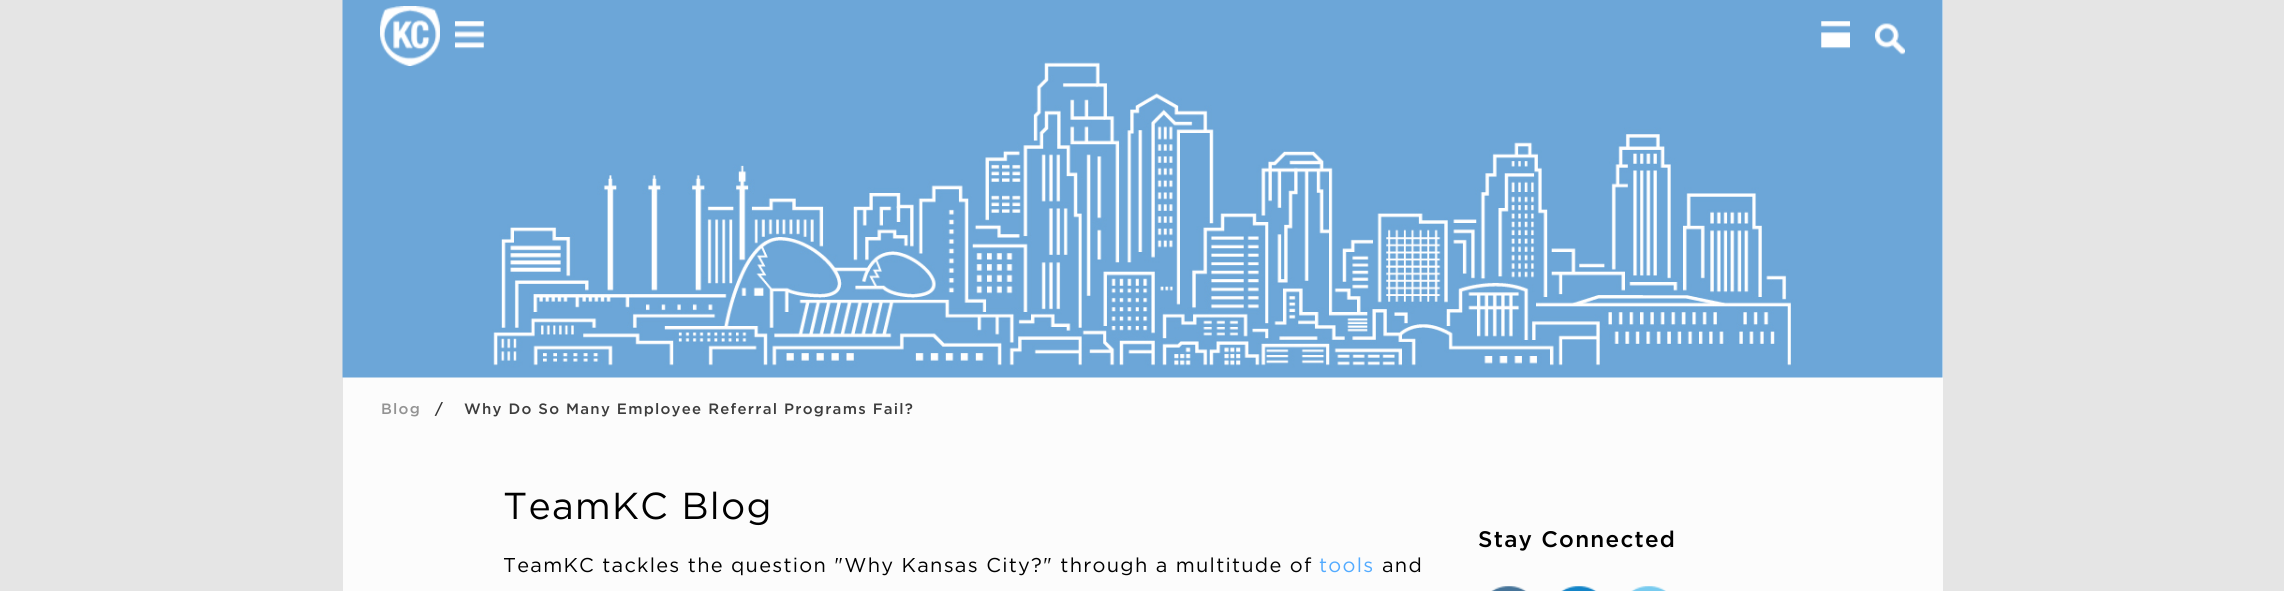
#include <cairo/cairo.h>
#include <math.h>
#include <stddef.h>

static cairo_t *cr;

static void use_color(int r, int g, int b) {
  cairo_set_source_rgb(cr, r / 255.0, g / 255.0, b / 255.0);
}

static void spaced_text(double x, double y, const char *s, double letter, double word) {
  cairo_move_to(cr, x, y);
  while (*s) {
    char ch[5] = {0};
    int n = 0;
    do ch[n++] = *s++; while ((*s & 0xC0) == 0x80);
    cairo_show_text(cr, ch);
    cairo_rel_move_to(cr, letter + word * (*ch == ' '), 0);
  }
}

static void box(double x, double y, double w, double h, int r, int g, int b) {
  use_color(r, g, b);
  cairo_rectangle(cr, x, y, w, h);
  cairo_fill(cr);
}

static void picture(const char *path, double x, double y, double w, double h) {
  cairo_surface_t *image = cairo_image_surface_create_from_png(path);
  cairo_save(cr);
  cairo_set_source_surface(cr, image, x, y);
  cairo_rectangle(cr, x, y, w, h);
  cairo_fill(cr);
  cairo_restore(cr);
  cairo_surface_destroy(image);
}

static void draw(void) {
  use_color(229, 229, 229);
  cairo_paint(cr);
  box(343, 0, 1600, 591, 252, 252, 252);
  picture("img_01.png", 342, 0, 1601, 378);
  picture("img_02.png", 380, 6, 60, 60);
  picture("img_03.png", 455, 21, 29, 28);
  picture("img_04.png", 1821, 21, 29, 28);
  picture("img_05.png", 1875, 23, 30, 32);
  picture("img_06.png", 1491, 586, 36, 5);
  picture("img_07.png", 1561, 586, 36, 5);
  picture("img_08.png", 1631, 586, 35, 5);
  cairo_select_font_face(cr, "Gotham Medium", CAIRO_FONT_SLANT_NORMAL, CAIRO_FONT_WEIGHT_NORMAL);
  cairo_set_font_size(cr, 15);
  use_color(147, 147, 147);
  spaced_text(381, 414, "Blog", 1.25, 0);
  use_color(51, 51, 51);
  spaced_text(435, 414, "/", 1.25, 0);
  use_color(61, 61, 61);
  spaced_text(464, 414, "Why Do So Many Employee Referral Programs Fail?", 1.25, 0);
  cairo_select_font_face(cr, "Gotham", CAIRO_FONT_SLANT_NORMAL, CAIRO_FONT_WEIGHT_NORMAL);
  cairo_set_font_size(cr, 37.5);
  use_color(0, 0, 0);
  spaced_text(503, 519, "TeamKC Blog", 1.25, 0);
  cairo_set_font_size(cr, 20);
  spaced_text(503, 572, "TeamKC tackles the question \"Why Kansas City?\" through a multitude of", 1.25, 0);
  use_color(83, 171, 255);
  spaced_text(1319, 572, "tools", 1.25, 0);
  use_color(0, 0, 0);
  spaced_text(1382, 572, "and", 1.25, 0);
  cairo_select_font_face(cr, "Gotham Medium", CAIRO_FONT_SLANT_NORMAL, CAIRO_FONT_WEIGHT_NORMAL);
  cairo_set_font_size(cr, 22.5);
  spaced_text(1478, 547, "Stay Connected", 1.25, 0);
}

int main(void) {
  cairo_surface_t *surface = cairo_image_surface_create(CAIRO_FORMAT_RGB24, 2284, 591);
  cr = cairo_create(surface);
  cairo_font_options_t *options = cairo_font_options_create();
  cairo_font_options_set_hint_metrics(options, CAIRO_HINT_METRICS_OFF);
  cairo_font_options_set_hint_style(options, CAIRO_HINT_STYLE_NONE);
  cairo_set_font_options(cr, options);
  cairo_set_miter_limit(cr, 4);
  draw();
  cairo_surface_write_to_png(surface, "out.png");
  cairo_font_options_destroy(options);
  cairo_destroy(cr);
  cairo_surface_destroy(surface);
  return 0;
}
